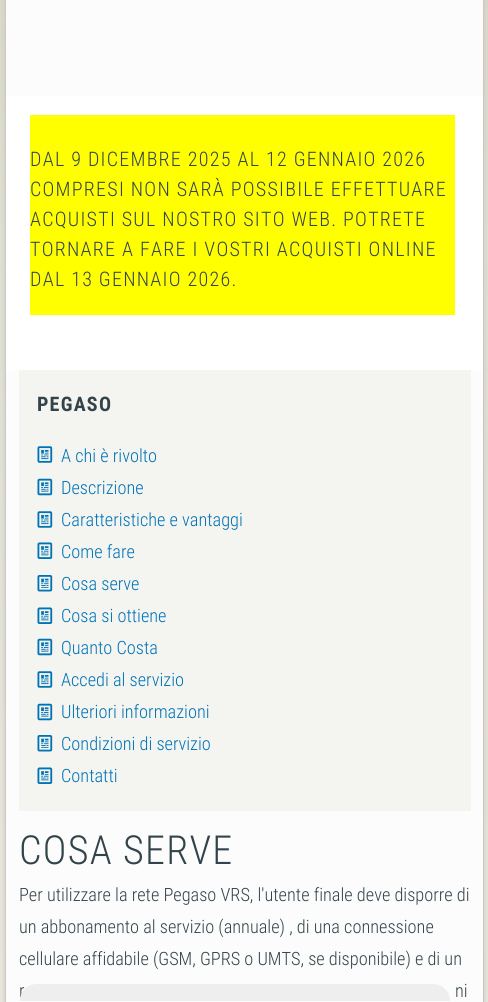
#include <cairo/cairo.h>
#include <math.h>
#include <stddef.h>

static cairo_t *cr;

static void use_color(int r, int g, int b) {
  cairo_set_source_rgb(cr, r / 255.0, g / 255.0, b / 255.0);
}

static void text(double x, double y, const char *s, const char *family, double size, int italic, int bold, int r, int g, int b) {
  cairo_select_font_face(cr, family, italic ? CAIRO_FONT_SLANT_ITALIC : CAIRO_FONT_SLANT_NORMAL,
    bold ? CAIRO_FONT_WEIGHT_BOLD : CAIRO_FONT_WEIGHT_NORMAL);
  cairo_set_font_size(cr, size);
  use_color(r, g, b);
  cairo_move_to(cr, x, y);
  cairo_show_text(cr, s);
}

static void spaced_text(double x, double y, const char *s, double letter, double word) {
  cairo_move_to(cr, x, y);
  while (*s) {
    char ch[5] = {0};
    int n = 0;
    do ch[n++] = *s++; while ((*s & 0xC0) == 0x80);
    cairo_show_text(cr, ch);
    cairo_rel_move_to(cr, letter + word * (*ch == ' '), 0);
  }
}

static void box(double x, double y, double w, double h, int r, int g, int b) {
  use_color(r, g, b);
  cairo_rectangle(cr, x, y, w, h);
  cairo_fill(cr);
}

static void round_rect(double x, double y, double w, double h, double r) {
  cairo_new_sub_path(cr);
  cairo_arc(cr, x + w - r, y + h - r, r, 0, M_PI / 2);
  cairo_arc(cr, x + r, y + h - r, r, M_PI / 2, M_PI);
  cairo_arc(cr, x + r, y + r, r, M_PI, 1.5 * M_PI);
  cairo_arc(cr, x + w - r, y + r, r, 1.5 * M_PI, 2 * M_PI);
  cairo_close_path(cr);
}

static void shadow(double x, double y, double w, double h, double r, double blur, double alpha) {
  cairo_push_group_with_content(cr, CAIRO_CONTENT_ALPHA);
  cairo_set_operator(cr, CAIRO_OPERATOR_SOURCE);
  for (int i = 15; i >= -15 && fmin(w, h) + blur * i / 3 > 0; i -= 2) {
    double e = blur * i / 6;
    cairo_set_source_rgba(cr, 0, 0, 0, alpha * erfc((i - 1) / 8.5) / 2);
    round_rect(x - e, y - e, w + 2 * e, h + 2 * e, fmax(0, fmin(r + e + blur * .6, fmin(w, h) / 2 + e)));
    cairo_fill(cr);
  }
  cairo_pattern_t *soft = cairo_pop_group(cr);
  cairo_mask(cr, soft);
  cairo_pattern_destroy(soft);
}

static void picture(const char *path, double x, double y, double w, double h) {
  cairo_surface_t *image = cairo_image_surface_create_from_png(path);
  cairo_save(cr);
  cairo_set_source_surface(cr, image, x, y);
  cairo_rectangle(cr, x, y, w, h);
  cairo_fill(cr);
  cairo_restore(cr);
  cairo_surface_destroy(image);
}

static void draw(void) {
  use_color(235, 232, 225);
  cairo_paint(cr);
  picture("img_01.png", 0, 0, 488, 1000);
  use_color(202, 202, 187);
  shadow(5, -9, 479, 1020, 0, 3, 1);
  use_color(252, 252, 252);
  cairo_rectangle(cr, 5.5, -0.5, 478, 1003);
  cairo_fill_preserve(cr);
  use_color(202, 202, 187);
  cairo_set_line_width(cr, 1);
  cairo_stroke(cr);
  box(6, 96, 477, 274, 255, 255, 255);
  box(30, 115, 425, 200, 255, 255, 0);
  box(19, 370, 452, 441, 244, 244, 241);
  picture("img_02.png", 37, 446, 16, 17);
  picture("img_03.png", 37, 478, 16, 18);
  picture("img_02.png", 37, 511, 16, 17);
  picture("img_04.png", 37, 542, 16, 17);
  picture("img_05.png", 37, 575, 16, 17);
  picture("img_04.png", 37, 607, 16, 17);
  picture("img_03.png", 37, 638, 16, 18);
  picture("img_02.png", 37, 671, 16, 17);
  picture("img_03.png", 37, 703, 16, 18);
  picture("img_05.png", 37, 735, 16, 17);
  picture("img_04.png", 37, 767, 16, 17);
  cairo_select_font_face(cr, "Roboto Condensed Light", CAIRO_FONT_SLANT_NORMAL, CAIRO_FONT_WEIGHT_NORMAL);
  cairo_set_font_size(cr, 20);
  use_color(50, 68, 74);
  spaced_text(30, 166, "DAL 9 DICEMBRE 2025 AL 12 GENNAIO 2026", 1.25, 0);
  spaced_text(30, 196, "COMPRESI NON SARÀ POSSIBILE EFFETTUARE", 1.25, 0);
  spaced_text(30, 226, "ACQUISTI SUL NOSTRO SITO WEB. POTRETE", 1.25, 0);
  spaced_text(30, 256, "TORNARE A FARE I VOSTRI ACQUISTI ONLINE", 1.25, 0);
  spaced_text(30, 286, "DAL 13 GENNAIO 2026.", 1.25, 0);
  cairo_select_font_face(cr, "Roboto Condensed", CAIRO_FONT_SLANT_NORMAL, CAIRO_FONT_WEIGHT_BOLD);
  spaced_text(37, 411, "PEGASO", 1.25, 0);
  text(61, 462, "A chi è rivolto", "Roboto Condensed Light", 18.3, 0, 0, 0, 115, 181);
  text(61, 494, "Descrizione", "Roboto Condensed Light", 18.3, 0, 0, 0, 115, 181);
  text(61, 526, "Caratteristiche e vantaggi", "Roboto Condensed Light", 18.3, 0, 0, 0, 115, 181);
  text(61, 558, "Come fare", "Roboto Condensed Light", 18.3, 0, 0, 0, 115, 181);
  text(61, 590, "Cosa serve", "Roboto Condensed Light", 18.3, 0, 0, 0, 115, 181);
  text(61, 622, "Cosa si ottiene", "Roboto Condensed Light", 18.3, 0, 0, 0, 115, 181);
  text(61, 654, "Quanto Costa", "Roboto Condensed Light", 18.3, 0, 0, 0, 115, 181);
  text(61, 686, "Accedi al servizio", "Roboto Condensed Light", 18.3, 0, 0, 0, 115, 181);
  text(61, 718, "Ulteriori informazioni", "Roboto Condensed Light", 18.3, 0, 0, 0, 115, 181);
  text(61, 750, "Condizioni di servizio", "Roboto Condensed Light", 18.3, 0, 0, 0, 115, 181);
  text(61, 782, "Contatti", "Roboto Condensed Light", 18.3, 0, 0, 0, 115, 181);
  cairo_set_font_size(cr, 40);
  use_color(50, 68, 74);
  spaced_text(19, 864, "COSA SERVE", 1.25, 0);
  text(19, 901, "Per utilizzare la rete Pegaso VRS, l'utente finale deve disporre di", "Roboto Condensed Light", 18.3, 0, 0, 50, 68, 74);
  text(19, 933, "un abbonamento al servizio (annuale) , di una connessione", "Roboto Condensed Light", 18.3, 0, 0, 50, 68, 74);
  text(19, 965, "cellulare affidabile (GSM, GPRS o UMTS, se disponibile) e di un", "Roboto Condensed Light", 18.3, 0, 0, 50, 68, 74);
  text(19, 997, "r", "Roboto Condensed Light", 18.3, 0, 0, 50, 68, 74);
  text(455, 997, "ni", "Roboto Condensed Light", 18.3, 0, 0, 50, 68, 74);
  use_color(238, 238, 238);
  cairo_new_path(cr);
  cairo_move_to(cr, 37, 984);
  cairo_line_to(cr, 433, 984);
  cairo_curve_to(cr, 442.5, 984, 450, 991.5, 450, 1001);
  cairo_line_to(cr, 20, 1001);
  cairo_curve_to(cr, 20, 991.5, 27.5, 984, 37, 984);
  cairo_close_path(cr);
  cairo_fill(cr);
}

int main(void) {
  cairo_surface_t *surface = cairo_image_surface_create(CAIRO_FORMAT_RGB24, 488, 1002);
  cr = cairo_create(surface);
  cairo_font_options_t *options = cairo_font_options_create();
  cairo_font_options_set_hint_metrics(options, CAIRO_HINT_METRICS_OFF);
  cairo_font_options_set_hint_style(options, CAIRO_HINT_STYLE_NONE);
  cairo_set_font_options(cr, options);
  cairo_set_miter_limit(cr, 4);
  draw();
  cairo_surface_write_to_png(surface, "out.png");
  cairo_font_options_destroy(options);
  cairo_destroy(cr);
  cairo_surface_destroy(surface);
  return 0;
}
